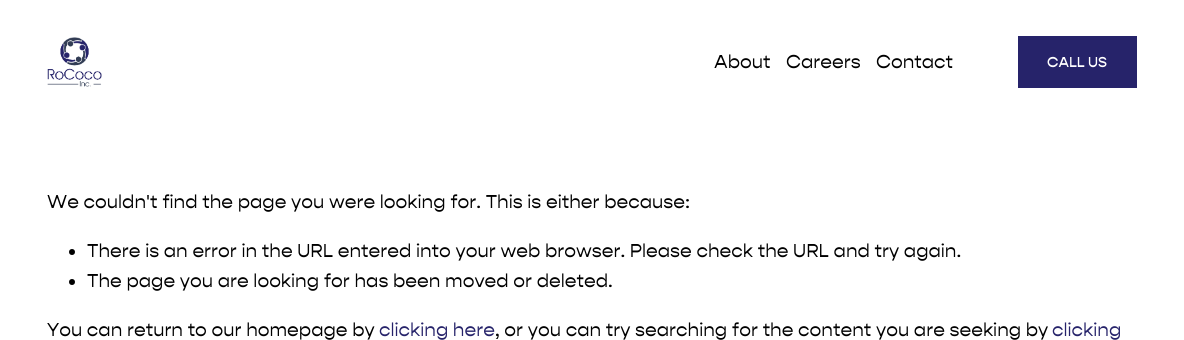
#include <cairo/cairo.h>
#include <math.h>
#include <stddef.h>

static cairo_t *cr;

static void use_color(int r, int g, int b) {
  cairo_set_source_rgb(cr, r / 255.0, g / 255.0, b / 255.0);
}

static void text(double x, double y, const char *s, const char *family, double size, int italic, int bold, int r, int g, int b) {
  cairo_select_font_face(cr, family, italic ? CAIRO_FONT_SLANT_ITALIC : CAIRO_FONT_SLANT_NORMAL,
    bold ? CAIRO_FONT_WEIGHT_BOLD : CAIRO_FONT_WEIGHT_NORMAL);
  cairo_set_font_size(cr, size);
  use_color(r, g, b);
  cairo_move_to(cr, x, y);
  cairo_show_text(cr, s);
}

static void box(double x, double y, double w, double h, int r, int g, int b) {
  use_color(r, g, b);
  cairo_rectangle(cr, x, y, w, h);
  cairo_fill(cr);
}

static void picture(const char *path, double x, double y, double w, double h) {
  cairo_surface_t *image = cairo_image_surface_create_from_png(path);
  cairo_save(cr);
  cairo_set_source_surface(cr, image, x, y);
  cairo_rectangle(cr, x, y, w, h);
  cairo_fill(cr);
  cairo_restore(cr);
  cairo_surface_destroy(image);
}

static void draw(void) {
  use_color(255, 255, 255);
  cairo_paint(cr);
  picture("img_01.png", 47, 37, 55, 50);
  box(1018, 36, 119, 52, 38, 35, 106);
  use_color(0, 0, 0);
  cairo_arc(cr, 72, 252, 3, 0, 2 * M_PI);
  cairo_fill(cr);
  cairo_arc(cr, 72, 282, 3, 0, 2 * M_PI);
  cairo_fill(cr);
  text(714, 68, "About", "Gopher", 18.85, 0, 0, 0, 0, 0);
  text(786, 68, "Careers", "Gopher", 18.85, 0, 0, 0, 0, 0);
  text(876, 68, "Contact", "Gopher", 18.85, 0, 0, 0, 0, 0);
  text(1047, 67, "CALL US", "Gopher Medium", 14.5, 0, 0, 255, 255, 255);
  text(47, 208, "We couldn't find the page you were looking for. This is either because:", "Gopher", 18.85, 0, 0, 0, 0, 0);
  text(87, 257, "There is an error in the URL entered into your web browser. Please check the URL and try again.", "Gopher", 18.85, 0, 0, 0, 0, 0);
  text(87, 287, "The page you are looking for has been moved or deleted.", "Gopher", 18.85, 0, 0, 0, 0, 0);
  text(47, 336, "You can return to our homepage by", "Gopher", 18.85, 0, 0, 0, 0, 0);
  text(379, 336, "clicking here", "Gopher", 18.85, 0, 0, 38, 35, 106);
  text(495, 336, ", or you can try searching for the content you are seeking by", "Gopher", 18.85, 0, 0, 0, 0, 0);
  text(1052, 336, "clicking", "Gopher", 18.85, 0, 0, 38, 35, 106);
}

int main(void) {
  cairo_surface_t *surface = cairo_image_surface_create(CAIRO_FORMAT_RGB24, 1184, 340);
  cr = cairo_create(surface);
  cairo_font_options_t *options = cairo_font_options_create();
  cairo_font_options_set_hint_metrics(options, CAIRO_HINT_METRICS_OFF);
  cairo_font_options_set_hint_style(options, CAIRO_HINT_STYLE_NONE);
  cairo_set_font_options(cr, options);
  cairo_set_miter_limit(cr, 4);
  draw();
  cairo_surface_write_to_png(surface, "out.png");
  cairo_font_options_destroy(options);
  cairo_destroy(cr);
  cairo_surface_destroy(surface);
  return 0;
}
